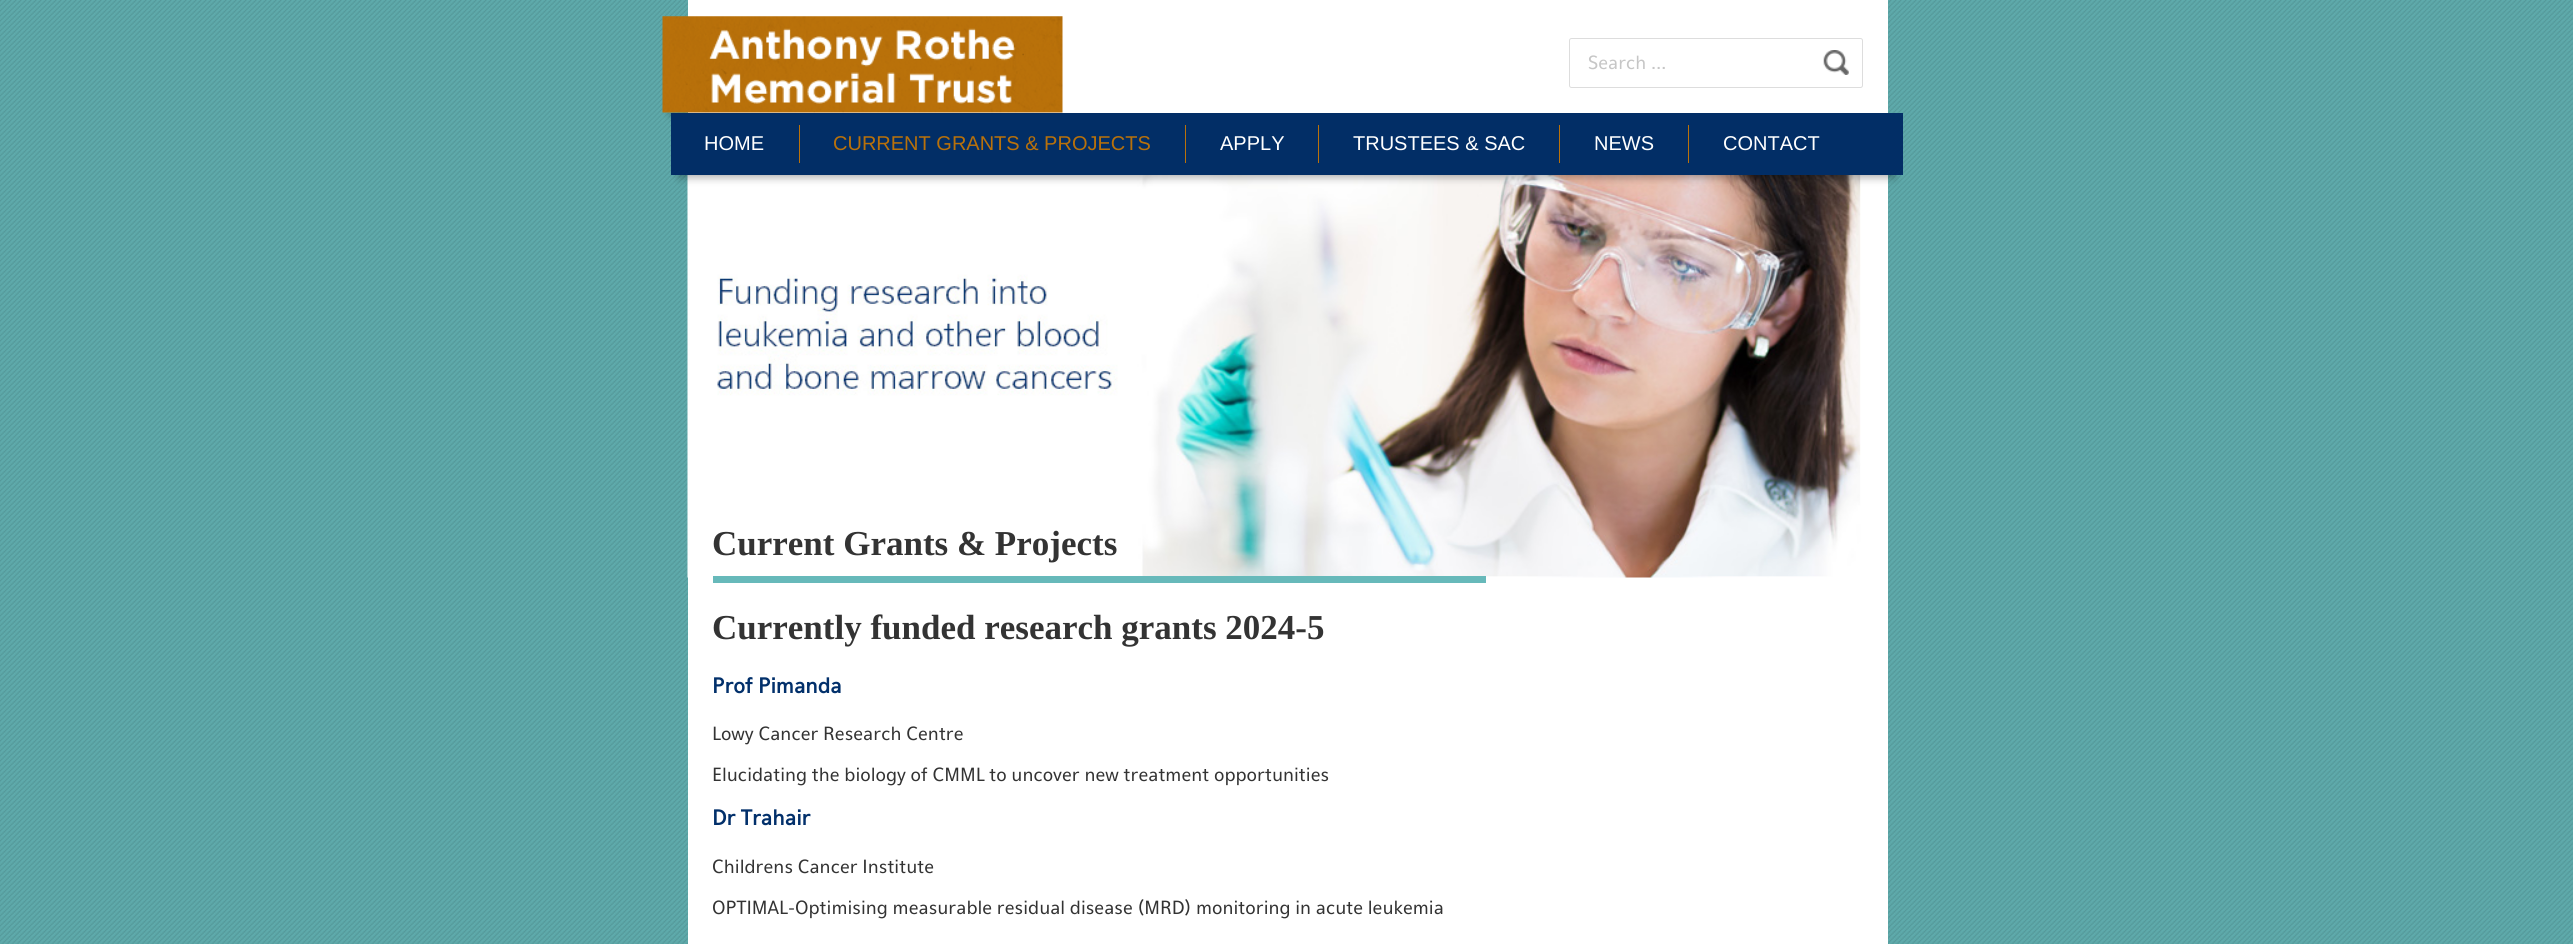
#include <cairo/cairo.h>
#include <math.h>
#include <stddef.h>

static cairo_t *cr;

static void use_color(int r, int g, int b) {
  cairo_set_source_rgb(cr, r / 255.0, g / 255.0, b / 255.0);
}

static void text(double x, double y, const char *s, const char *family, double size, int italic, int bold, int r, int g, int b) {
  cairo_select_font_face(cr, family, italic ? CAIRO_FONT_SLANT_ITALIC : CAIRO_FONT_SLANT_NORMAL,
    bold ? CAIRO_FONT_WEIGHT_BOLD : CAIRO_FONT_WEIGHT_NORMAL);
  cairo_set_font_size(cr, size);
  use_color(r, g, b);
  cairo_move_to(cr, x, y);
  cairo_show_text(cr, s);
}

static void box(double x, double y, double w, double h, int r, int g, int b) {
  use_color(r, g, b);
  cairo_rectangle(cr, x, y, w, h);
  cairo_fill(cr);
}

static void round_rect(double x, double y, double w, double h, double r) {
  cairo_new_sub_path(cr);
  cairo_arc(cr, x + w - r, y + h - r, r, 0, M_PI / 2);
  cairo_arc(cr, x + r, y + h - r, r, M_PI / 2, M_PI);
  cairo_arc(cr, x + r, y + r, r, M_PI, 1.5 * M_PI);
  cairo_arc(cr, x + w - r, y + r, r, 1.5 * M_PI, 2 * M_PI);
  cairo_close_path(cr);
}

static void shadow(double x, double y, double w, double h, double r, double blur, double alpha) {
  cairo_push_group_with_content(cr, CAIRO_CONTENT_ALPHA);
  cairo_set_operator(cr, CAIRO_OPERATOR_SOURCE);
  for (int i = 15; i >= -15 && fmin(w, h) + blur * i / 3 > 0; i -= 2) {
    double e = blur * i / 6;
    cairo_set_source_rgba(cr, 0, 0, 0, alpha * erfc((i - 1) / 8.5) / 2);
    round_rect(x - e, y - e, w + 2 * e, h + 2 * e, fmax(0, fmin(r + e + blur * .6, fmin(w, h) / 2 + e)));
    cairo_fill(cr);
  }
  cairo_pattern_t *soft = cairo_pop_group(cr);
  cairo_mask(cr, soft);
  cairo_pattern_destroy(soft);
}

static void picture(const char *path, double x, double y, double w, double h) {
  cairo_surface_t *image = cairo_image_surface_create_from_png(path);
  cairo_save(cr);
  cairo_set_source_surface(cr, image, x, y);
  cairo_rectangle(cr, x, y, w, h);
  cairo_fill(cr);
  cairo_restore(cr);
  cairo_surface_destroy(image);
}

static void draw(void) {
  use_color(255, 255, 255);
  cairo_paint(cr);
  picture("img_01.png", 0, 0, 2573, 944);
  box(688, 0, 1200, 944, 255, 255, 255);
  cairo_save(cr);
  cairo_set_fill_rule(cr, CAIRO_FILL_RULE_EVEN_ODD);
  cairo_new_path(cr);
  cairo_move_to(cr, 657, 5);
  cairo_line_to(cr, 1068, 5);
  cairo_line_to(cr, 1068, 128);
  cairo_line_to(cr, 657, 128);
  cairo_close_path(cr);
  cairo_move_to(cr, 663, 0);
  cairo_line_to(cr, 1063, 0);
  cairo_line_to(cr, 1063, 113);
  cairo_line_to(cr, 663, 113);
  cairo_close_path(cr);
  cairo_clip(cr);
  use_color(0, 0, 0);
  shadow(670, 18, 385, 97, 0, 4, 0.3);
  cairo_restore(cr);
  picture("img_02.png", 662, 16, 401, 97);
  round_rect(1569.5, 38.5, 293, 49, 2);
  use_color(221, 221, 221);
  cairo_set_line_width(cr, 1);
  cairo_stroke(cr);
  picture("img_03.png", 1823, 50, 26, 25);
  picture("img_04.png", 687, 175, 1174, 403);
  use_color(0, 0, 0);
  shadow(679, 130, 1216, 48, 0, 4, 0.3);
  box(671, 113, 1232, 62, 2, 46, 102);
  box(799, 125, 1, 38, 185, 113, 10);
  box(1185, 125, 1, 38, 185, 113, 10);
  box(1318, 125, 1, 38, 185, 113, 10);
  box(1559, 125, 1, 38, 185, 113, 10);
  box(1688, 125, 1, 38, 185, 113, 10);
  box(713, 576, 773, 7, 103, 185, 186);
  text(1588, 69, "Search …", "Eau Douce", 20, 0, 0, 198, 198, 198);
  text(704, 150, "HOME", "Liberation Sans", 20, 0, 0, 255, 255, 255);
  text(833, 150, "CURRENT GRANTS & PROJECTS", "Liberation Sans", 20, 0, 0, 185, 113, 10);
  text(1220, 150, "APPLY", "Liberation Sans", 20, 0, 0, 255, 255, 255);
  text(1353, 150, "TRUSTEES & SAC", "Liberation Sans", 20, 0, 0, 255, 255, 255);
  text(1594, 150, "NEWS", "Liberation Sans", 20, 0, 0, 255, 255, 255);
  text(1723, 150, "CONTACT", "Liberation Sans", 20, 0, 0, 255, 255, 255);
  text(712, 555, "Current Grants & Projects", "Liberation Serif", 35, 0, 1, 51, 51, 51);
  text(712, 639, "Currently funded research grants 2024-5", "Liberation Serif", 35, 0, 1, 51, 51, 51);
  text(712, 693, "Prof Pimanda", "Eau Douce", 22.5, 0, 1, 2, 48, 107);
  text(712, 740, "Lowy Cancer Research Centre", "Eau Douce", 20, 0, 0, 51, 51, 51);
  text(712, 781, "Elucidating the biology of CMML to uncover new treatment opportunities", "Eau Douce", 20, 0, 0, 51, 51, 51);
  text(712, 825, "Dr Trahair", "Eau Douce", 22.5, 0, 1, 2, 48, 107);
  text(712, 873, "Childrens Cancer Institute", "Eau Douce", 20, 0, 0, 51, 51, 51);
  text(712, 914, "OPTIMAL-Optimising measurable residual disease (MRD) monitoring in acute leukemia", "Eau Douce", 20, 0, 0, 51, 51, 51);
}

int main(void) {
  cairo_surface_t *surface = cairo_image_surface_create(CAIRO_FORMAT_RGB24, 2573, 944);
  cr = cairo_create(surface);
  cairo_font_options_t *options = cairo_font_options_create();
  cairo_font_options_set_hint_metrics(options, CAIRO_HINT_METRICS_OFF);
  cairo_font_options_set_hint_style(options, CAIRO_HINT_STYLE_NONE);
  cairo_set_font_options(cr, options);
  cairo_set_miter_limit(cr, 4);
  draw();
  cairo_surface_write_to_png(surface, "out.png");
  cairo_font_options_destroy(options);
  cairo_destroy(cr);
  cairo_surface_destroy(surface);
  return 0;
}
